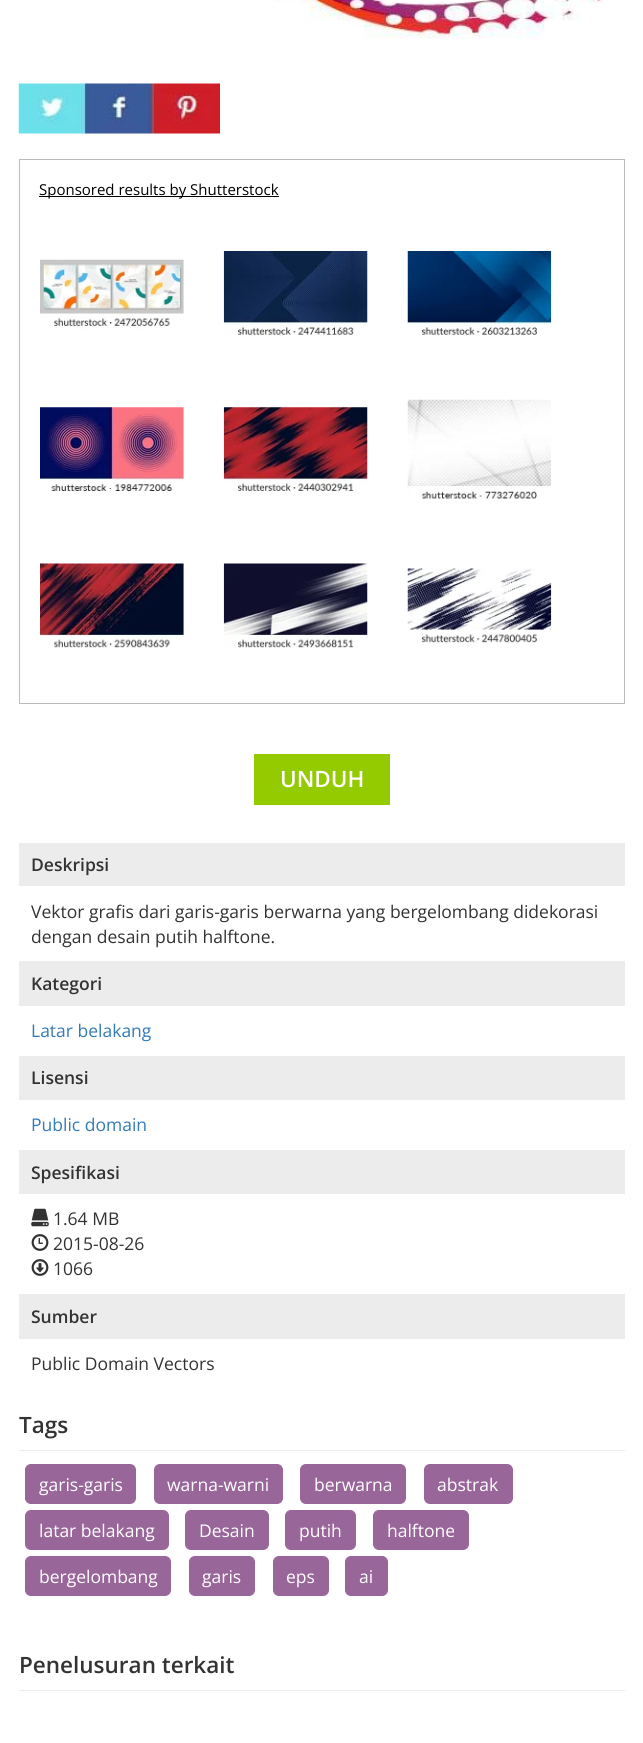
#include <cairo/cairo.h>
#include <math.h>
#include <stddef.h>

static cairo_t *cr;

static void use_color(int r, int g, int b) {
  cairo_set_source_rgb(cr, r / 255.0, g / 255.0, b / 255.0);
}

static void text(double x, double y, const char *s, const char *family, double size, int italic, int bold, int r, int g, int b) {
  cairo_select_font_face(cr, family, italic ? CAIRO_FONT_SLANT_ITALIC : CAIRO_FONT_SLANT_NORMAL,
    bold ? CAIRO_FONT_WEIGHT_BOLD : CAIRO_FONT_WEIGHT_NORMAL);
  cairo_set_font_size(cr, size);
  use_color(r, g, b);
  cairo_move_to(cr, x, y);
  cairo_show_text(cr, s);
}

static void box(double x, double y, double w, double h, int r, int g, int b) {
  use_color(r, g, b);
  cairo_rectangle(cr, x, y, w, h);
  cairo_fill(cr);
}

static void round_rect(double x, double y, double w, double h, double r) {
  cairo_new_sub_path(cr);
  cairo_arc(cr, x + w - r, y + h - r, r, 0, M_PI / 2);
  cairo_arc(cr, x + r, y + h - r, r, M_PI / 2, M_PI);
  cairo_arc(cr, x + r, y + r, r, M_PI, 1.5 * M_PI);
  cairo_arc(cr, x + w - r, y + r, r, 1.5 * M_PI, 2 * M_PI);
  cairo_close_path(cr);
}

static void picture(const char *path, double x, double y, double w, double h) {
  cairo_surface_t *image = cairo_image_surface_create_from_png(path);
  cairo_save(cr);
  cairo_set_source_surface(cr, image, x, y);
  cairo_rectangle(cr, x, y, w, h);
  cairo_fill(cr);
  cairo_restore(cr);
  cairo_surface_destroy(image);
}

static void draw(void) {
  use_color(255, 255, 255);
  cairo_paint(cr);
  picture("img_01.png", 274, 0, 329, 39);
  picture("img_02.png", 18, 83, 202, 51);
  box(19, 159, 606, 1, 187, 187, 187);
  box(624, 159, 1, 545, 187, 187, 187);
  box(19, 159, 1, 62, 187, 187, 187);
  box(39, 196, 240, 1, 0, 0, 0);
  box(19, 703, 606, 1, 187, 187, 187);
  box(19, 221, 1, 483, 187, 187, 187);
  picture("img_03.png", 40, 259, 144, 70);
  picture("img_04.png", 223, 251, 145, 84);
  picture("img_05.png", 407, 251, 145, 84);
  picture("img_06.png", 40, 407, 144, 84);
  picture("img_07.png", 223, 407, 145, 84);
  picture("img_08.png", 407, 399, 144, 100);
  picture("img_09.png", 40, 563, 144, 85);
  picture("img_10.png", 223, 563, 145, 85);
  picture("img_11.png", 407, 568, 145, 75);
  box(254, 754, 136, 51, 148, 203, 0);
  box(19, 843, 606, 43, 236, 236, 236);
  box(19, 961, 606, 45, 236, 236, 236);
  box(19, 1056, 606, 44, 236, 236, 236);
  box(19, 1150, 606, 44, 236, 236, 236);
  picture("img_12.png", 31, 1208, 18, 19);
  picture("img_13.png", 31, 1234, 18, 17);
  picture("img_14.png", 31, 1259, 18, 17);
  box(19, 1294, 606, 45, 236, 236, 236);
  box(19, 1450, 606, 1, 236, 236, 236);
  use_color(153, 102, 153);
  round_rect(25.5, 1464.5, 110, 39, 5.5);
  cairo_fill_preserve(cr);
  cairo_set_line_width(cr, 1);
  cairo_stroke(cr);
  round_rect(154.5, 1464.5, 128, 39, 5.5);
  cairo_fill_preserve(cr);
  cairo_stroke(cr);
  round_rect(300.5, 1464.5, 105, 39, 5.5);
  cairo_fill_preserve(cr);
  cairo_stroke(cr);
  round_rect(424.5, 1464.5, 88, 39, 5.5);
  cairo_fill_preserve(cr);
  cairo_stroke(cr);
  round_rect(25.5, 1510.5, 143, 39, 5.5);
  cairo_fill_preserve(cr);
  cairo_stroke(cr);
  round_rect(185.5, 1510.5, 83, 39, 5.5);
  cairo_fill_preserve(cr);
  cairo_stroke(cr);
  round_rect(285.5, 1510.5, 70, 39, 5.5);
  cairo_fill_preserve(cr);
  cairo_stroke(cr);
  round_rect(373.5, 1510.5, 95, 39, 5.5);
  cairo_fill_preserve(cr);
  cairo_stroke(cr);
  round_rect(25.5, 1556.5, 145, 39, 5.5);
  cairo_fill_preserve(cr);
  cairo_stroke(cr);
  round_rect(189.5, 1556.5, 65, 39, 5.5);
  cairo_fill_preserve(cr);
  cairo_stroke(cr);
  round_rect(273.5, 1556.5, 55, 39, 5.5);
  cairo_fill_preserve(cr);
  cairo_stroke(cr);
  round_rect(345.5, 1556.5, 42, 39, 5.5);
  cairo_fill_preserve(cr);
  cairo_stroke(cr);
  box(19, 1690, 606, 1, 236, 236, 236);
  text(39, 195, "Sponsored results by Shutterstock", "Open Sans", 15, 0, 0, 0, 0, 0);
  text(280, 787, "UNDUH", "Open Sans SemiBold", 22.5, 0, 0, 255, 255, 255);
  text(31, 871, "Deskripsi", "Open Sans SemiBold", 17.5, 0, 0, 51, 51, 51);
  text(31, 918, "Vektor grafis dari garis-garis berwarna yang bergelombang didekorasi", "Open Sans", 17.5, 0, 0, 51, 51, 51);
  text(31, 943, "dengan desain putih halftone.", "Open Sans", 17.5, 0, 0, 51, 51, 51);
  text(31, 990, "Kategori", "Open Sans SemiBold", 17.5, 0, 0, 51, 51, 51);
  text(31, 1037, "Latar belakang", "Open Sans", 17.5, 0, 0, 51, 122, 183);
  text(31, 1084, "Lisensi", "Open Sans SemiBold", 17.5, 0, 0, 51, 51, 51);
  text(31, 1131, "Public domain", "Open Sans", 17.5, 0, 0, 51, 122, 183);
  text(31, 1179, "Spesifikasi", "Open Sans SemiBold", 17.5, 0, 0, 51, 51, 51);
  text(53, 1225, "1.64 MB", "Open Sans", 17.5, 0, 0, 51, 51, 51);
  text(53, 1250, "2015-08-26", "Open Sans", 17.5, 0, 0, 51, 51, 51);
  text(53, 1275, "1066", "Open Sans", 17.5, 0, 0, 51, 51, 51);
  text(31, 1323, "Sumber", "Open Sans SemiBold", 17.5, 0, 0, 51, 51, 51);
  text(31, 1370, "Public Domain Vectors", "Open Sans", 17.5, 0, 0, 51, 51, 51);
  text(19, 1433, "Tags", "Open Sans SemiBold", 22.5, 0, 0, 51, 51, 51);
  text(39, 1491, "garis-garis", "Open Sans", 17.5, 0, 0, 255, 255, 255);
  text(167, 1491, "warna-warni", "Open Sans", 17.5, 0, 0, 255, 255, 255);
  text(314, 1491, "berwarna", "Open Sans", 17.5, 0, 0, 255, 255, 255);
  text(437, 1491, "abstrak", "Open Sans", 17.5, 0, 0, 255, 255, 255);
  text(39, 1537, "latar belakang", "Open Sans", 17.5, 0, 0, 255, 255, 255);
  text(199, 1537, "Desain", "Open Sans", 17.5, 0, 0, 255, 255, 255);
  text(299, 1537, "putih", "Open Sans", 17.5, 0, 0, 255, 255, 255);
  text(387, 1537, "halftone", "Open Sans", 17.5, 0, 0, 255, 255, 255);
  text(39, 1583, "bergelombang", "Open Sans", 17.5, 0, 0, 255, 255, 255);
  text(202, 1583, "garis", "Open Sans", 17.5, 0, 0, 255, 255, 255);
  text(286, 1583, "eps", "Open Sans", 17.5, 0, 0, 255, 255, 255);
  text(359, 1583, "ai", "Open Sans", 17.5, 0, 0, 255, 255, 255);
  text(19, 1673, "Penelusuran terkait", "Open Sans SemiBold", 22.5, 0, 0, 51, 51, 51);
}

int main(void) {
  cairo_surface_t *surface = cairo_image_surface_create(CAIRO_FORMAT_RGB24, 643, 1743);
  cr = cairo_create(surface);
  cairo_font_options_t *options = cairo_font_options_create();
  cairo_font_options_set_hint_metrics(options, CAIRO_HINT_METRICS_OFF);
  cairo_font_options_set_hint_style(options, CAIRO_HINT_STYLE_NONE);
  cairo_set_font_options(cr, options);
  cairo_set_miter_limit(cr, 4);
  draw();
  cairo_surface_write_to_png(surface, "out.png");
  cairo_font_options_destroy(options);
  cairo_destroy(cr);
  cairo_surface_destroy(surface);
  return 0;
}
